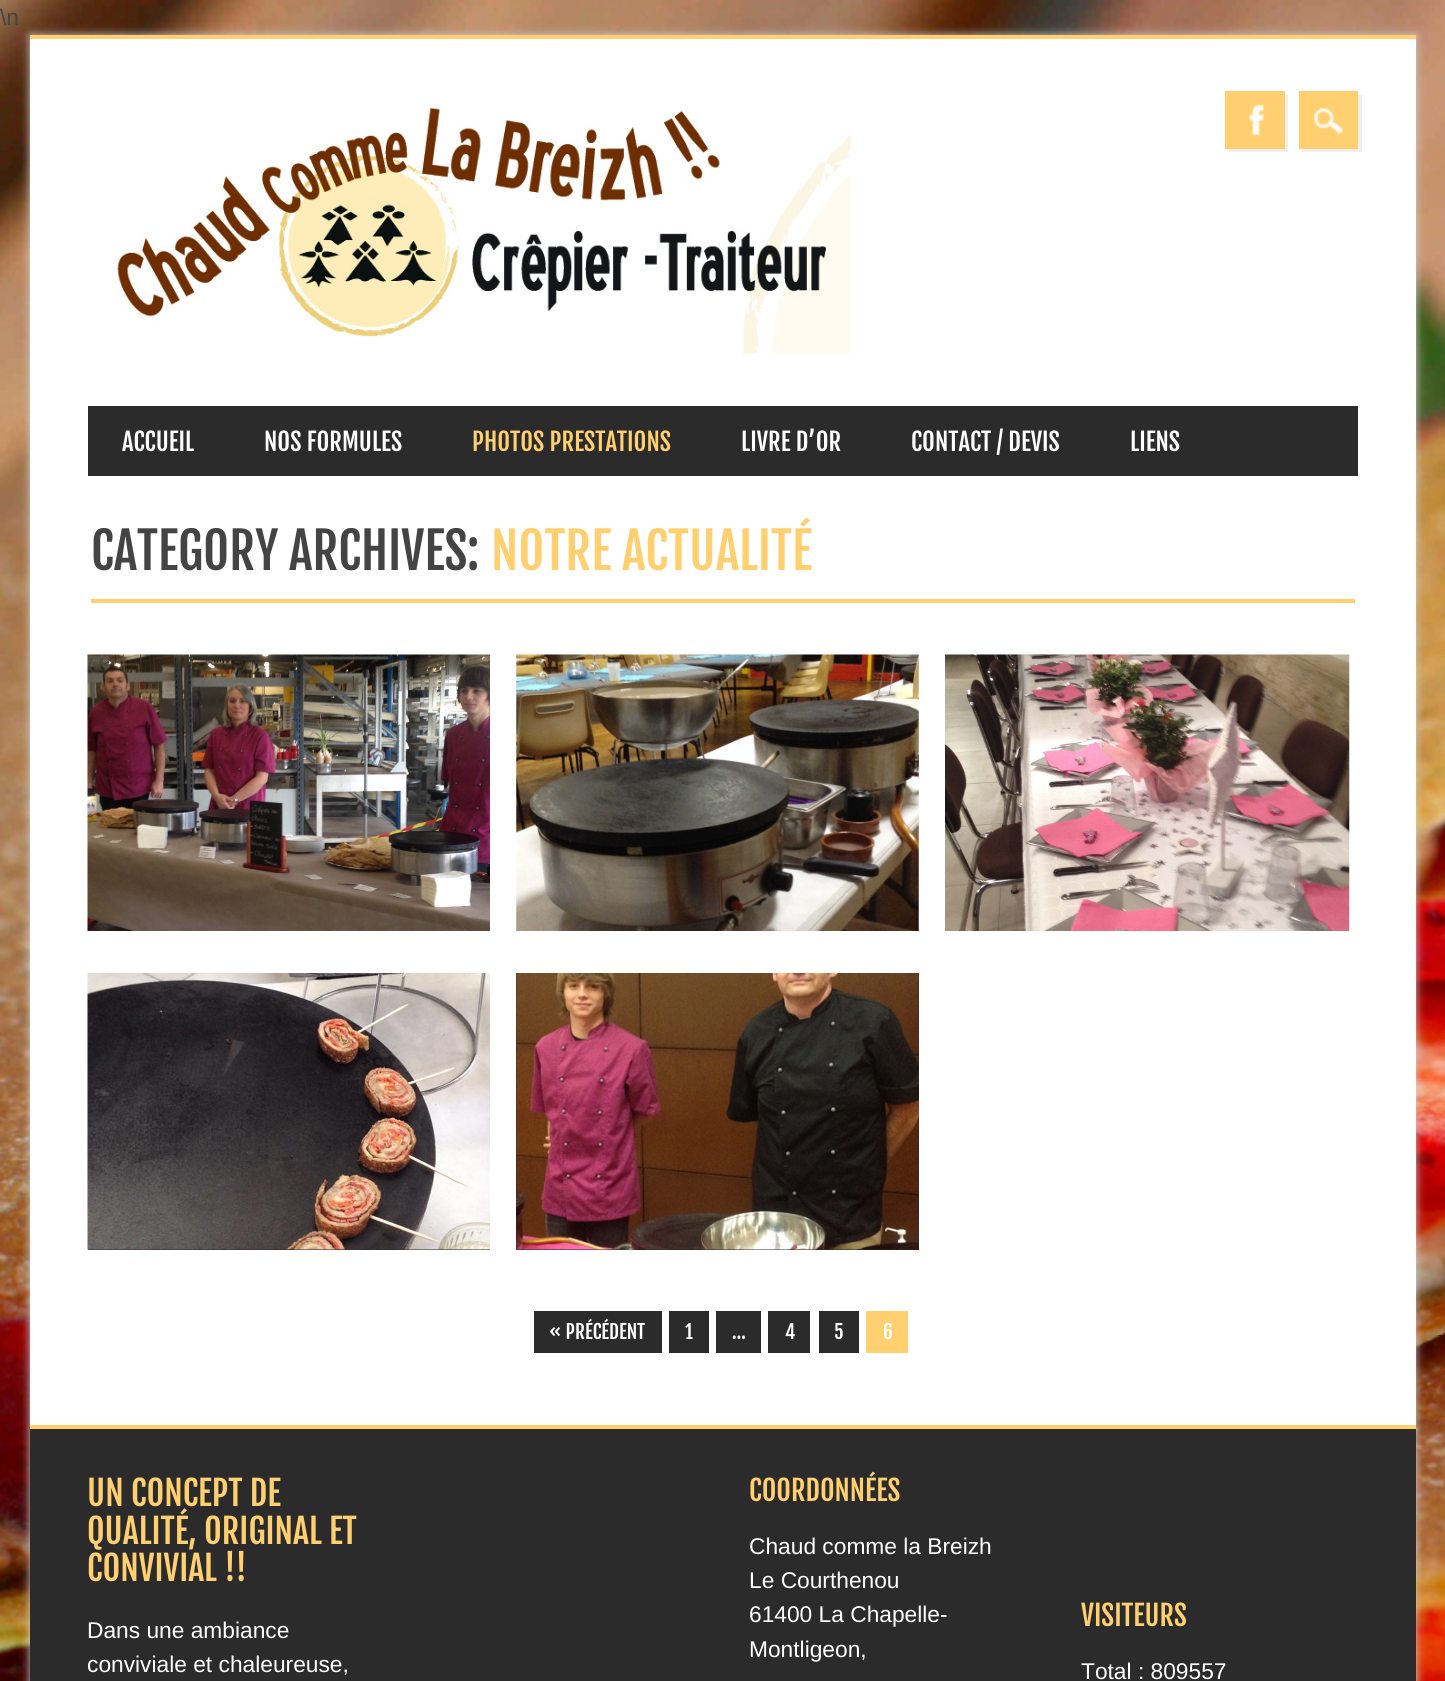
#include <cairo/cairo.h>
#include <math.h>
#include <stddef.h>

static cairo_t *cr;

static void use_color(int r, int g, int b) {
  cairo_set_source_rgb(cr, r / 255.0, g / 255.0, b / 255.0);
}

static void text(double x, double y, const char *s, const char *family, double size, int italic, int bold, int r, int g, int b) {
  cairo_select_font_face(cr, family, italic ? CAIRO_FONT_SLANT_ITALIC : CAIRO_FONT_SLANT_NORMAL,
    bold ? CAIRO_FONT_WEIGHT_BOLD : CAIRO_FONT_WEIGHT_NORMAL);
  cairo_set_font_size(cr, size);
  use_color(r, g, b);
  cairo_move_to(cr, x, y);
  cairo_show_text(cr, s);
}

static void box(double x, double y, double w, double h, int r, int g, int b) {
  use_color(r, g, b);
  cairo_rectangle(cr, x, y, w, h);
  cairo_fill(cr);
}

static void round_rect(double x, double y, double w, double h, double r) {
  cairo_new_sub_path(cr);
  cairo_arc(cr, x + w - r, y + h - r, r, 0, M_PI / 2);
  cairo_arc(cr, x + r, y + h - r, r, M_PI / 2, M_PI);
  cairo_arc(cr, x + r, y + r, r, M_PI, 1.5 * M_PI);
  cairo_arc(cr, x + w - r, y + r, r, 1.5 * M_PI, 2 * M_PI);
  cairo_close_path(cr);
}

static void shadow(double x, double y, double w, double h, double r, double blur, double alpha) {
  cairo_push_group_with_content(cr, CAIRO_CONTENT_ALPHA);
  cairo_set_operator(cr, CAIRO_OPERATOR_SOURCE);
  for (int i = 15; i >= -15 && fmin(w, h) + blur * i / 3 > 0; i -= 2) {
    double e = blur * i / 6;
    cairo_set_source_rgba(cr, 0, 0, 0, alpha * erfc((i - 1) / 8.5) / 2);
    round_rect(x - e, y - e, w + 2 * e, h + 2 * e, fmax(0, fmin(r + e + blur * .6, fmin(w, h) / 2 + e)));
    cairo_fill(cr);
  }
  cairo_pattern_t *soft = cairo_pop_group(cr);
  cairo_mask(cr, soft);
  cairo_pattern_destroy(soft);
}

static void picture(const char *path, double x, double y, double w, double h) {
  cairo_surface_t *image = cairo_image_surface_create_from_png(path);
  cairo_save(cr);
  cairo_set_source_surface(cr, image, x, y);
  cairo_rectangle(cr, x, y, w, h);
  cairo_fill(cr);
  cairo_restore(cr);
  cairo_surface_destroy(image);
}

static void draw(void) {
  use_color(255, 255, 255);
  cairo_paint(cr);
  picture("img_01.png", 0, 0, 1445, 1681);
  use_color(208, 208, 208);
  shadow(30, 35, 1386, 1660, 0, 4.5, 1);
  box(30, 39, 1386, 1386, 255, 255, 255);
  box(30, 35, 1386, 4, 255, 207, 112);
  picture("img_02.png", 117, 107, 734, 247);
  use_color(240, 240, 240);
  cairo_new_path(cr);
  cairo_move_to(cr, 1229, 149);
  cairo_line_to(cr, 1229, 152);
  cairo_line_to(cr, 1288, 152);
  cairo_line_to(cr, 1288, 95);
  cairo_line_to(cr, 1284, 95);
  cairo_line_to(cr, 1284, 149);
  cairo_close_path(cr);
  cairo_fill(cr);
  box(1225, 91, 60, 58, 255, 207, 112);
  picture("img_03.png", 1249, 104, 15, 32);
  use_color(240, 240, 240);
  cairo_new_path(cr);
  cairo_move_to(cr, 1302, 149);
  cairo_line_to(cr, 1302, 152);
  cairo_line_to(cr, 1362, 152);
  cairo_line_to(cr, 1362, 95);
  cairo_line_to(cr, 1358, 95);
  cairo_line_to(cr, 1358, 149);
  cairo_close_path(cr);
  cairo_fill(cr);
  box(1299, 91, 59, 58, 255, 207, 112);
  picture("img_04.png", 1313, 108, 30, 26);
  box(88, 406, 1270, 70, 43, 43, 43);
  box(91, 599, 1264, 4, 255, 207, 112);
  picture("img_05.png", 87, 654, 403, 277);
  picture("img_06.png", 516, 654, 403, 277);
  picture("img_07.png", 945, 654, 405, 277);
  box(88, 1249, 402, 1, 43, 43, 43);
  picture("img_08.png", 87, 973, 403, 277);
  box(516, 973, 403, 277, 43, 43, 43);
  picture("img_09.png", 516, 973, 403, 277);
  box(534, 1311, 128, 42, 43, 43, 43);
  box(669, 1311, 40, 42, 43, 43, 43);
  box(716, 1311, 45, 42, 43, 43, 43);
  box(768, 1311, 42, 42, 43, 43, 43);
  box(819, 1311, 40, 42, 43, 43, 43);
  box(866, 1311, 42, 42, 255, 207, 112);
  box(30, 1429, 1386, 252, 43, 43, 43);
  box(30, 1425, 1386, 4, 255, 207, 112);
  text(0, 25, "\\n", "Liberation Sans", 22.75, 0, 0, 68, 68, 68);
  text(122, 451, "ACCUEIL", "Fjalla One", 24.5, 0, 0, 255, 255, 255);
  text(264, 451, "NOS FORMULES", "Fjalla One", 24.5, 0, 0, 255, 255, 255);
  text(472, 451, "PHOTOS PRESTATIONS", "Fjalla One", 24.5, 0, 0, 255, 207, 112);
  text(741, 451, "LIVRE D’OR", "Fjalla One", 24.5, 0, 0, 255, 255, 255);
  text(911, 451, "CONTACT / DEVIS", "Fjalla One", 24.5, 0, 0, 255, 255, 255);
  text(1130, 451, "LIENS", "Fjalla One", 24.5, 0, 0, 255, 255, 255);
  text(91, 570, "CATEGORY ARCHIVES:", "Fjalla One", 50, 0, 0, 68, 68, 68);
  text(491, 570, "NOTRE ACTUALITÉ", "Fjalla One", 50, 0, 0, 255, 207, 112);
  text(549, 1339, "« PRÉCÉDENT", "Fjalla One", 19.25, 0, 0, 255, 255, 255);
  text(685, 1339, "1", "Fjalla One", 19.25, 0, 0, 255, 255, 255);
  text(732, 1339, "…", "Fjalla One", 19.25, 0, 0, 255, 255, 255);
  text(785, 1339, "4", "Fjalla One", 19.25, 0, 0, 255, 255, 255);
  text(834, 1339, "5", "Fjalla One", 19.25, 0, 0, 255, 255, 255);
  text(883, 1339, "6", "Fjalla One", 19.25, 0, 0, 255, 255, 255);
  text(87, 1506, "UN CONCEPT DE", "Fjalla One", 34, 0, 0, 255, 207, 112);
  text(87, 1544, "QUALITÉ, ORIGINAL ET", "Fjalla One", 34, 0, 0, 255, 207, 112);
  text(87, 1581, "CONVIVIAL !!", "Fjalla One", 34, 0, 0, 255, 207, 112);
  text(87, 1638, "Dans une ambiance", "Liberation Sans", 22.75, 0, 0, 255, 255, 255);
  text(87, 1672, "conviviale et chaleureuse,", "Liberation Sans", 22.75, 0, 0, 255, 255, 255);
  text(749, 1501, "COORDONNÉES", "Fjalla One", 28, 0, 0, 255, 207, 112);
  text(749, 1554, "Chaud comme la Breizh", "Liberation Sans", 22.75, 0, 0, 255, 255, 255);
  text(749, 1588, "Le Courthenou", "Liberation Sans", 22.75, 0, 0, 255, 255, 255);
  text(749, 1622, "61400 La Chapelle-", "Liberation Sans", 22.75, 0, 0, 255, 255, 255);
  text(749, 1657, "Montligeon,", "Liberation Sans", 22.75, 0, 0, 255, 255, 255);
  text(1081, 1626, "VISITEURS", "Fjalla One", 28, 0, 0, 255, 207, 112);
  text(1081, 1679, "Total : 809557", "Liberation Sans", 22.75, 0, 0, 255, 255, 255);
}

int main(void) {
  cairo_surface_t *surface = cairo_image_surface_create(CAIRO_FORMAT_RGB24, 1445, 1681);
  cr = cairo_create(surface);
  cairo_font_options_t *options = cairo_font_options_create();
  cairo_font_options_set_hint_metrics(options, CAIRO_HINT_METRICS_OFF);
  cairo_font_options_set_hint_style(options, CAIRO_HINT_STYLE_NONE);
  cairo_set_font_options(cr, options);
  cairo_set_miter_limit(cr, 4);
  draw();
  cairo_surface_write_to_png(surface, "out.png");
  cairo_font_options_destroy(options);
  cairo_destroy(cr);
  cairo_surface_destroy(surface);
  return 0;
}
